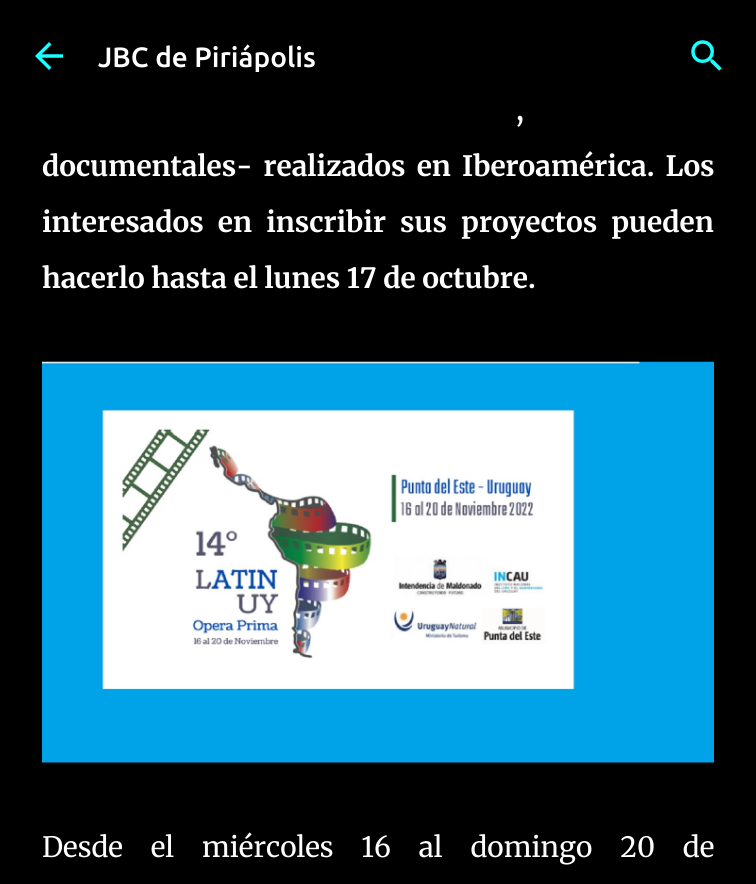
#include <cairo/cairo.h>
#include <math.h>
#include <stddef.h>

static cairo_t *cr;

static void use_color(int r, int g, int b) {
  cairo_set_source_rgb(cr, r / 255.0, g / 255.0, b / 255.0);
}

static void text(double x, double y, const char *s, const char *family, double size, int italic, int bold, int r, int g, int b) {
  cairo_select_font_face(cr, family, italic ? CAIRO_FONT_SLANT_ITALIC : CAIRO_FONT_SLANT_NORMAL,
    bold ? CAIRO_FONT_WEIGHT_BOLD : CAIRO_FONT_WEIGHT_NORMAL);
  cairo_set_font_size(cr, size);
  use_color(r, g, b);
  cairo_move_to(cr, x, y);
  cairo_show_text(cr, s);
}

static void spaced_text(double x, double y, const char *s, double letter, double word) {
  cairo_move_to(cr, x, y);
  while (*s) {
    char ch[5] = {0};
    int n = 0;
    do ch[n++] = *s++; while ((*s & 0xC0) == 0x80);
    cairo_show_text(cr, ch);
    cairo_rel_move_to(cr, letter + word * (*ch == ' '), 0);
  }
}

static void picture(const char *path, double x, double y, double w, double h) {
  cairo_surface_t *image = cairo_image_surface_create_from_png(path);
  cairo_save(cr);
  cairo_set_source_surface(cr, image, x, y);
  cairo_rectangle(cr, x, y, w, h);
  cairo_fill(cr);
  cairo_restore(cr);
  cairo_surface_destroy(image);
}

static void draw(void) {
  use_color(0, 0, 0);
  cairo_paint(cr);
  picture("img_01.png", 35, 42, 28, 28);
  picture("img_02.png", 691, 40, 31, 31);
  picture("img_03.png", 42, 361, 672, 402);
  cairo_save(cr);
  cairo_rectangle(cr, 98, 40, 560, 32);
  cairo_clip(cr);
  text(98, 67, "JBC de Piriápolis", "Ubuntu Medium", 28, 0, 0, 255, 255, 255);
  cairo_restore(cr);
  cairo_select_font_face(cr, "Merriweather", CAIRO_FONT_SLANT_NORMAL, CAIRO_FONT_WEIGHT_BOLD);
  cairo_set_font_size(cr, 28);
  use_color(255, 255, 255);
  spaced_text(516, 120, ",", 0, 9);
  spaced_text(42, 176, "documentales- realizados en Iberoamérica. Los", 0, 4.5);
  spaced_text(42, 232, "interesados en inscribir sus proyectos pueden", 0, 7.5);
  text(42, 288, "hacerlo hasta el lunes 17 de octubre.", "Merriweather", 28, 0, 1, 255, 255, 255);
  cairo_select_font_face(cr, "Merriweather", CAIRO_FONT_SLANT_NORMAL, CAIRO_FONT_WEIGHT_NORMAL);
  spaced_text(42, 857, "Desde el miércoles 16 al domingo 20 de", 0, 21.25);
}

int main(void) {
  cairo_surface_t *surface = cairo_image_surface_create(CAIRO_FORMAT_RGB24, 756, 884);
  cr = cairo_create(surface);
  cairo_font_options_t *options = cairo_font_options_create();
  cairo_font_options_set_hint_metrics(options, CAIRO_HINT_METRICS_OFF);
  cairo_font_options_set_hint_style(options, CAIRO_HINT_STYLE_NONE);
  cairo_set_font_options(cr, options);
  cairo_set_miter_limit(cr, 4);
  draw();
  cairo_surface_write_to_png(surface, "out.png");
  cairo_font_options_destroy(options);
  cairo_destroy(cr);
  cairo_surface_destroy(surface);
  return 0;
}
